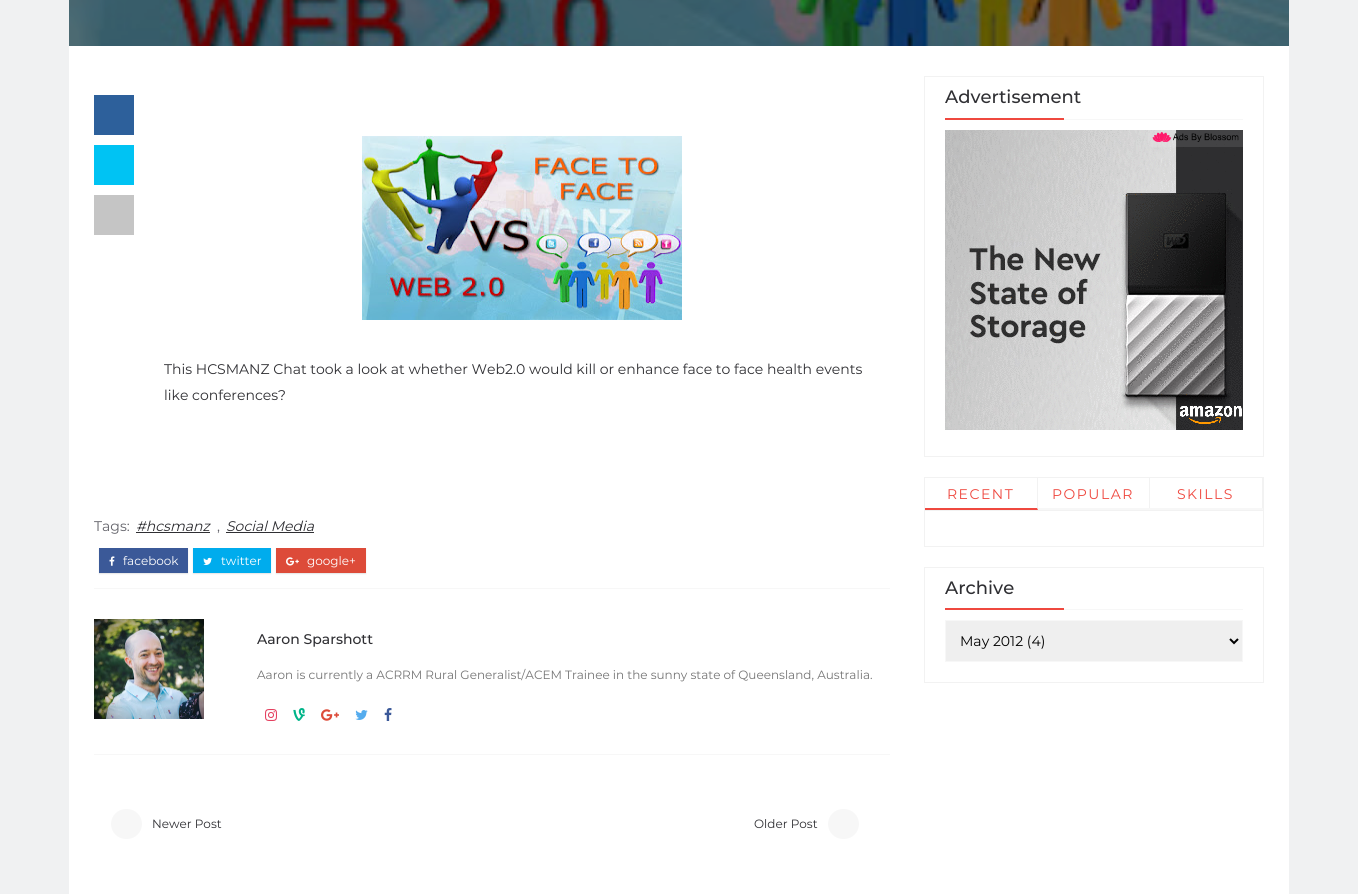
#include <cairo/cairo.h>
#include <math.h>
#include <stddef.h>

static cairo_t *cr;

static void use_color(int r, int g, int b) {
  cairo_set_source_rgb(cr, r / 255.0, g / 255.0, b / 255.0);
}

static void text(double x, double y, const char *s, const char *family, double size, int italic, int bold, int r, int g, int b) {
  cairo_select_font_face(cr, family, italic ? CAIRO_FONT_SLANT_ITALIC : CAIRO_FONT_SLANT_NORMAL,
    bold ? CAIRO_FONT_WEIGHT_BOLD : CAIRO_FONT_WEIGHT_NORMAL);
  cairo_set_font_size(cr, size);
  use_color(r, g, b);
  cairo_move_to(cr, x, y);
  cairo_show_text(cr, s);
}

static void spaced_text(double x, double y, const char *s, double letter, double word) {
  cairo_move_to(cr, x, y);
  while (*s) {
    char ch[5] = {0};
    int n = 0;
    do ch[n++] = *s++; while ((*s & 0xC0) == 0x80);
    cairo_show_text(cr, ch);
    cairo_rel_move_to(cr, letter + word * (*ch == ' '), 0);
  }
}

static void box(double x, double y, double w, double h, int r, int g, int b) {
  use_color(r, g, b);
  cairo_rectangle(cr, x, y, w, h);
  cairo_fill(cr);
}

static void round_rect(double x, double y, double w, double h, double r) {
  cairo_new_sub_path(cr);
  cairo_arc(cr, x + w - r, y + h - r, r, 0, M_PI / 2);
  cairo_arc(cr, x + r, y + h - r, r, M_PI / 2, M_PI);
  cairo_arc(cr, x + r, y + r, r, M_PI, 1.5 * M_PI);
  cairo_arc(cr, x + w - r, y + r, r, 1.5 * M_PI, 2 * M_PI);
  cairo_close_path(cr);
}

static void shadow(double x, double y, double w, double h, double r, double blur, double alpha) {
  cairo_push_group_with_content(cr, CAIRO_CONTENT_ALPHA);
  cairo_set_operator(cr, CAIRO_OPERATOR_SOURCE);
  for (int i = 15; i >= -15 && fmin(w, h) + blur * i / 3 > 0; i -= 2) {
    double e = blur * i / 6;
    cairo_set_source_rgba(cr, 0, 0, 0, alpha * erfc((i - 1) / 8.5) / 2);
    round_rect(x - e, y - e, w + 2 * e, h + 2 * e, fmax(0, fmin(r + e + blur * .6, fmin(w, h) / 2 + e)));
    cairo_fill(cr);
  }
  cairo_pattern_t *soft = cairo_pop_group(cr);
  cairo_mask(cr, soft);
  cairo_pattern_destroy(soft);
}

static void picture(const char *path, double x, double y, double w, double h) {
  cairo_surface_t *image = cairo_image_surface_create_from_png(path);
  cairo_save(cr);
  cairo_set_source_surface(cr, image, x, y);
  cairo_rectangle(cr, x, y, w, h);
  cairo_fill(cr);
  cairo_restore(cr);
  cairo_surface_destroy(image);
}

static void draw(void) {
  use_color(240, 241, 242);
  cairo_paint(cr);
  box(69, 46, 1220, 848, 255, 255, 255);
  picture("img_01.png", 69, 0, 1220, 46);
  box(94, 95, 40, 40, 45, 96, 155);
  box(94, 145, 40, 40, 0, 195, 243);
  box(94, 195, 40, 40, 197, 197, 197);
  picture("img_02.png", 362, 136, 320, 184);
  box(136, 532, 74, 1, 47, 47, 51);
  box(226, 532, 88, 1, 47, 47, 51);
  use_color(0, 0, 0);
  shadow(99, 549, 89, 25, 0, 0.5, 0.1);
  box(99, 548, 89, 25, 59, 89, 152);
  picture("img_03.png", 109, 556, 6, 10);
  use_color(0, 0, 0);
  shadow(193, 549, 78, 25, 0, 0.5, 0.1);
  box(193, 548, 78, 25, 0, 172, 237);
  picture("img_04.png", 203, 557, 9, 8);
  use_color(0, 0, 0);
  shadow(276, 549, 90, 25, 0, 0.5, 0.1);
  box(276, 548, 90, 25, 221, 75, 57);
  picture("img_05.png", 286, 557, 13, 9);
  box(94, 588, 796, 1, 247, 247, 247);
  box(94, 754, 796, 1, 247, 247, 247);
  picture("img_06.png", 94, 619, 110, 100);
  picture("img_07.png", 265, 709, 12, 12);
  picture("img_08.png", 293, 708, 12, 13);
  picture("img_09.png", 321, 709, 18, 12);
  picture("img_10.png", 355, 710, 13, 10);
  picture("img_11.png", 384, 708, 8, 13);
  round_rect(111, 809, 31, 30, 15);
  cairo_fill(cr);
  round_rect(828, 809, 31, 30, 15);
  cairo_fill(cr);
  cairo_rectangle(cr, 924.5, 76.5, 339, 380);
  use_color(242, 242, 242);
  cairo_set_line_width(cr, 1);
  cairo_stroke(cr);
  box(1064, 119, 179, 1, 247, 247, 247);
  box(945, 118, 119, 2, 239, 72, 63);
  picture("img_12.png", 945, 130, 298, 300);
  box(924, 477, 340, 1, 242, 242, 242);
  box(1263, 477, 1, 33, 242, 242, 242);
  box(924, 477, 1, 33, 242, 242, 242);
  cairo_new_path(cr);
  cairo_move_to(cr, 1038, 478);
  cairo_line_to(cr, 1038, 510);
  cairo_line_to(cr, 1037, 508);
  cairo_line_to(cr, 1037, 478);
  cairo_close_path(cr);
  cairo_fill(cr);
  use_color(239, 72, 63);
  cairo_new_path(cr);
  cairo_move_to(cr, 1038, 510);
  cairo_line_to(cr, 925, 510);
  cairo_line_to(cr, 925, 508);
  cairo_line_to(cr, 1037, 508);
  cairo_close_path(cr);
  cairo_fill(cr);
  use_color(242, 242, 242);
  cairo_new_path(cr);
  cairo_move_to(cr, 1150, 478);
  cairo_line_to(cr, 1150, 510);
  cairo_line_to(cr, 1149, 508);
  cairo_line_to(cr, 1149, 478);
  cairo_close_path(cr);
  cairo_fill(cr);
  use_color(247, 247, 247);
  cairo_new_path(cr);
  cairo_move_to(cr, 1150, 510);
  cairo_line_to(cr, 1038, 510);
  cairo_line_to(cr, 1038, 508);
  cairo_line_to(cr, 1149, 508);
  cairo_close_path(cr);
  cairo_fill(cr);
  use_color(242, 242, 242);
  cairo_new_path(cr);
  cairo_move_to(cr, 1263, 478);
  cairo_line_to(cr, 1263, 510);
  cairo_line_to(cr, 1262, 508);
  cairo_line_to(cr, 1262, 478);
  cairo_close_path(cr);
  cairo_fill(cr);
  use_color(247, 247, 247);
  cairo_new_path(cr);
  cairo_move_to(cr, 1263, 510);
  cairo_line_to(cr, 1150, 510);
  cairo_line_to(cr, 1150, 508);
  cairo_line_to(cr, 1262, 508);
  cairo_close_path(cr);
  cairo_fill(cr);
  cairo_rectangle(cr, 924.5, 510.5, 339, 36);
  use_color(242, 242, 242);
  cairo_stroke(cr);
  cairo_rectangle(cr, 924.5, 567.5, 339, 115);
  cairo_stroke(cr);
  box(1064, 609, 179, 1, 247, 247, 247);
  box(945, 608, 119, 2, 239, 72, 63);
  use_color(239, 239, 239);
  cairo_rectangle(cr, 945.5, 620.5, 297, 41);
  cairo_fill_preserve(cr);
  use_color(247, 247, 247);
  cairo_stroke(cr);
  cairo_new_path(cr);
  cairo_move_to(cr, 1230, 639);
  cairo_line_to(cr, 1234, 643);
  cairo_line_to(cr, 1238, 639);
  use_color(0, 0, 0);
  cairo_set_line_width(cr, 2);
  cairo_stroke(cr);
  text(164, 374, "This HCSMANZ Chat took a look at whether Web2.0 would kill or enhance face to face health events", "Montserrat", 14, 0, 0, 47, 47, 51);
  text(164, 400, "like conferences?", "Montserrat", 14, 0, 0, 47, 47, 51);
  text(94, 531, "Tags:", "Montserrat", 14, 0, 0, 99, 99, 106);
  text(136, 531, "#hcsmanz", "Montserrat", 14, 1, 0, 47, 47, 51);
  text(217, 531, ",", "Montserrat", 14, 0, 0, 99, 99, 106);
  text(226, 531, "Social Media", "Montserrat", 14, 1, 0, 47, 47, 51);
  text(123, 565, "facebook", "Montserrat", 12, 0, 0, 255, 255, 255);
  text(221, 565, "twitter", "Montserrat", 12, 0, 0, 255, 255, 255);
  text(307, 565, "google+", "Montserrat", 12, 0, 0, 255, 255, 255);
  text(257, 644, "Aaron Sparshott", "Montserrat Medium", 14, 0, 0, 47, 47, 51);
  text(257, 679, "Aaron is currently a ACRRM Rural Generalist/ACEM Trainee in the sunny state of Queensland, Australia.", "Montserrat", 12, 0, 0, 117, 117, 117);
  text(152, 828, "Newer Post", "Montserrat", 12, 0, 0, 47, 47, 51);
  text(754, 828, "Older Post", "Montserrat", 12, 0, 0, 47, 47, 51);
  text(945, 103, "Advertisement", "Montserrat Medium", 18, 0, 0, 47, 47, 51);
  cairo_select_font_face(cr, "Montserrat", CAIRO_FONT_SLANT_NORMAL, CAIRO_FONT_WEIGHT_NORMAL);
  cairo_set_font_size(cr, 14);
  use_color(239, 72, 63);
  spaced_text(947, 499, "RECENT", 1.5, 0);
  spaced_text(1052, 499, "POPULAR", 1.5, 0);
  spaced_text(1177, 499, "SKILLS", 1.5, 0);
  text(945, 594, "Archive", "Montserrat Medium", 18, 0, 0, 47, 47, 51);
  text(960, 646, "May 2012 (4)", "Montserrat", 14, 0, 0, 0, 0, 0);
}

int main(void) {
  cairo_surface_t *surface = cairo_image_surface_create(CAIRO_FORMAT_RGB24, 1358, 894);
  cr = cairo_create(surface);
  cairo_font_options_t *options = cairo_font_options_create();
  cairo_font_options_set_hint_metrics(options, CAIRO_HINT_METRICS_OFF);
  cairo_font_options_set_hint_style(options, CAIRO_HINT_STYLE_NONE);
  cairo_set_font_options(cr, options);
  cairo_set_miter_limit(cr, 4);
  draw();
  cairo_surface_write_to_png(surface, "out.png");
  cairo_font_options_destroy(options);
  cairo_destroy(cr);
  cairo_surface_destroy(surface);
  return 0;
}
